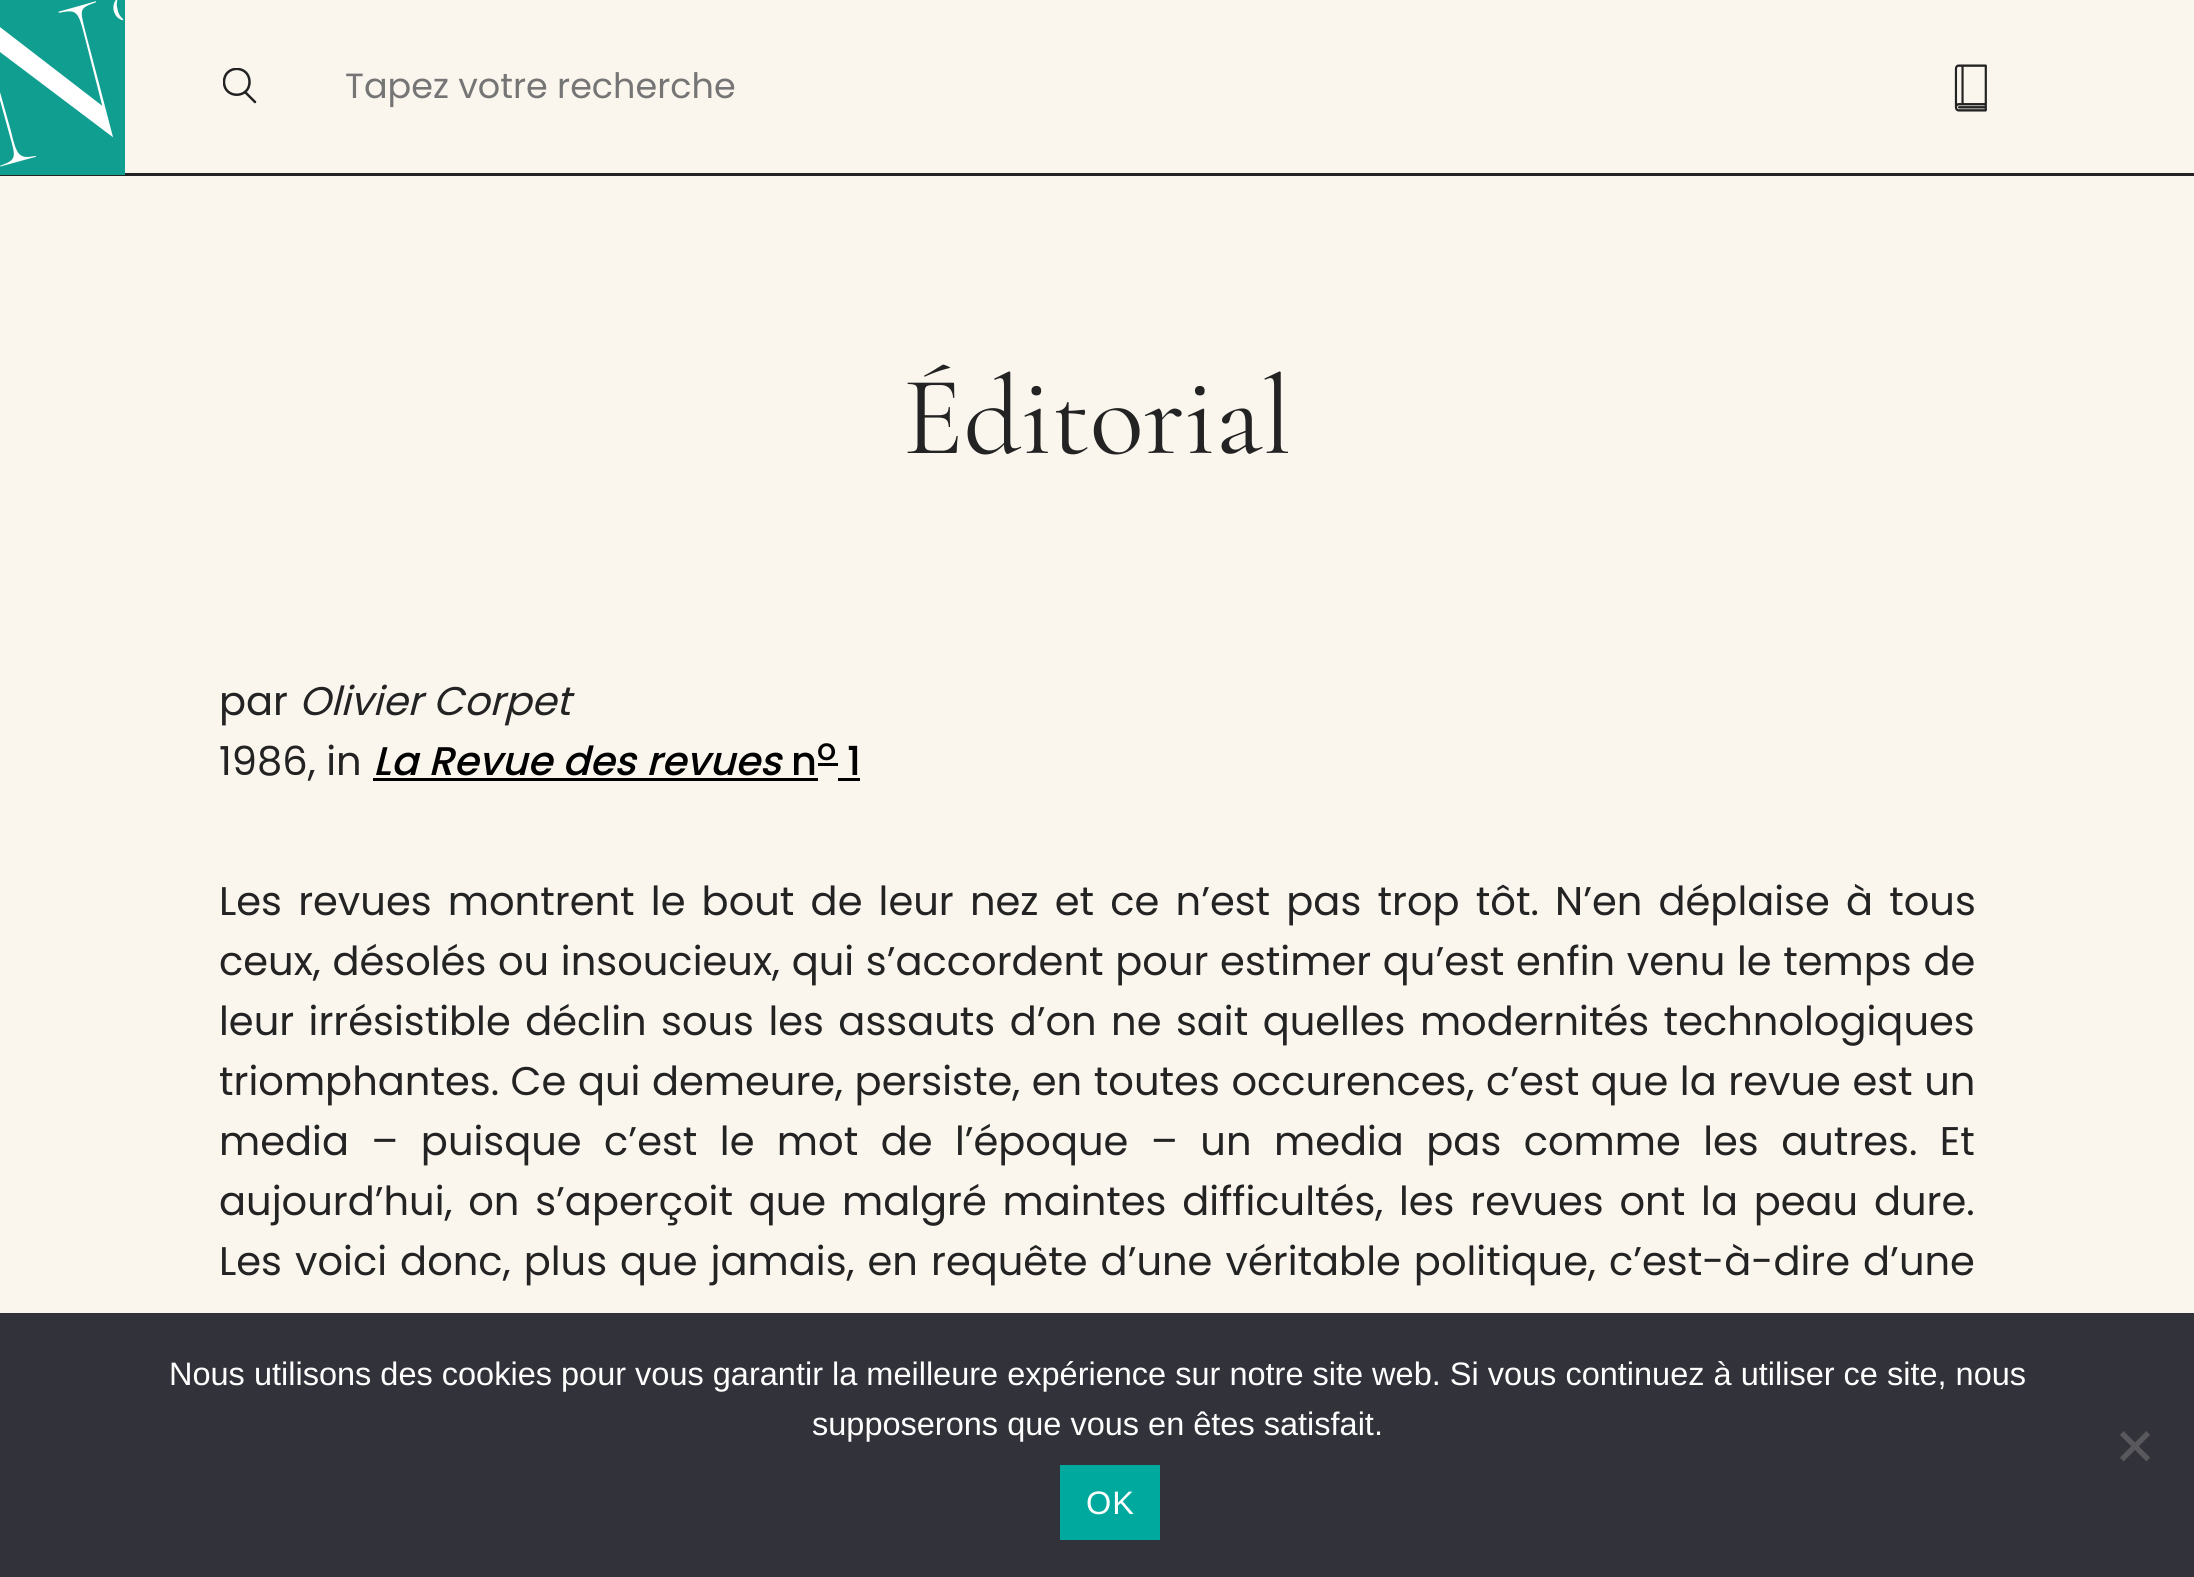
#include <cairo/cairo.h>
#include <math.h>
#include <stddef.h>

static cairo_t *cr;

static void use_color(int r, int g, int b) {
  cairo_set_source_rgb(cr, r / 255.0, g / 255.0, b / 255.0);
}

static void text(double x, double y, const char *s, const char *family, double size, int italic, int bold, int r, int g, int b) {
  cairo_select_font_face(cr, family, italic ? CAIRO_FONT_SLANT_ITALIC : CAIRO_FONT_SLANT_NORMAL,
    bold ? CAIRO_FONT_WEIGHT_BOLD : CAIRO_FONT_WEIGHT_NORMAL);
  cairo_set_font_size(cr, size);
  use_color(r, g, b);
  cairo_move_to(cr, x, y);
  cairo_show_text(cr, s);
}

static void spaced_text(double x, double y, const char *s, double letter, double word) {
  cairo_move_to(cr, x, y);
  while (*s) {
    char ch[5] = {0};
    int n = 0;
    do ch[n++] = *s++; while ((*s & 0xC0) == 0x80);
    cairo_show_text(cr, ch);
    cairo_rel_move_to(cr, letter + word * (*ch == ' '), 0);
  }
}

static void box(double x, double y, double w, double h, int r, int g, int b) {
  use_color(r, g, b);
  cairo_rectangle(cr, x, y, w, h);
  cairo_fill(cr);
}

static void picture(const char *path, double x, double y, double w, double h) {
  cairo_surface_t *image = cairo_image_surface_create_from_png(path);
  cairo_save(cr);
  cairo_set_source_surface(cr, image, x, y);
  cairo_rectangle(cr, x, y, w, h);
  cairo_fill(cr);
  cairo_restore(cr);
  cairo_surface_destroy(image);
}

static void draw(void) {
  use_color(250, 245, 237);
  cairo_paint(cr);
  box(0, 173, 2194, 3, 35, 35, 35);
  picture("img_01.png", 0, 0, 125, 175);
  cairo_save(cr);
  cairo_rectangle(cr, 223, 68, 35, 37);
  cairo_clip(cr);
  cairo_new_path(cr);
  cairo_move_to(cr, 249.5, 82);
  cairo_curve_to(cr, 249.5, 99, 224, 99, 224, 82);
  cairo_curve_to(cr, 224, 64.5, 249.5, 64.5, 249.5, 82);
  cairo_close_path(cr);
  cairo_set_line_width(cr, 2.5);
  cairo_stroke(cr);
  cairo_restore(cr);
  cairo_new_path(cr);
  cairo_move_to(cr, 245, 92);
  cairo_line_to(cr, 255, 102);
  cairo_set_line_width(cr, 2.5);
  cairo_set_line_cap(cr, CAIRO_LINE_CAP_ROUND);
  cairo_stroke(cr);
  picture("img_02.png", 1954, 64, 33, 48);
  box(373, 778, 445, 3, 0, 0, 0);
  box(818, 763, 20, 3, 0, 0, 0);
  box(838, 778, 22, 3, 0, 0, 0);
  box(0, 1313, 2194, 264, 50, 50, 58);
  use_color(89, 89, 93);
  cairo_new_path(cr);
  cairo_move_to(cr, 2146.5, 1431);
  cairo_line_to(cr, 2150, 1435);
  cairo_line_to(cr, 2123.5, 1461.5);
  cairo_line_to(cr, 2120, 1457.5);
  cairo_close_path(cr);
  cairo_fill(cr);
  cairo_new_path(cr);
  cairo_move_to(cr, 2120, 1435);
  cairo_line_to(cr, 2123.5, 1431);
  cairo_line_to(cr, 2150, 1457.5);
  cairo_line_to(cr, 2146.5, 1461.5);
  cairo_close_path(cr);
  cairo_fill(cr);
  box(1060, 1465, 100, 75, 0, 169, 157);
  text(345, 98, "Tapez votre recherche", "Poppins", 35, 0, 0, 117, 117, 117);
  text(903, 453, "Éditorial", "Cormorant Garamond Light", 112.5, 0, 0, 35, 35, 35);
  text(219, 715, "par", "Poppins", 40, 0, 0, 35, 35, 35);
  text(299, 715, "Olivier Corpet", "Poppins", 40, 1, 0, 35, 35, 35);
  text(219, 775, "1986, in", "Poppins", 40, 0, 0, 35, 35, 35);
  text(373, 775, "La Revue des revues", "Poppins Medium", 40, 1, 0, 0, 0, 0);
  text(791, 775, "n", "Poppins Medium", 40, 0, 0, 0, 0, 0);
  text(817, 760, "o", "Poppins Medium", 30, 0, 0, 0, 0, 0);
  text(847, 775, "1", "Poppins Medium", 40, 0, 0, 0, 0, 0);
  cairo_select_font_face(cr, "Poppins", CAIRO_FONT_SLANT_NORMAL, CAIRO_FONT_WEIGHT_NORMAL);
  use_color(35, 35, 35);
  spaced_text(219, 915, "Les revues montrent le bout de leur nez et ce n’est pas trop tôt. N’en déplaise à tous", 0, 5.5);
  spaced_text(219, 975, "ceux, désolés ou insoucieux, qui s’accordent pour estimer qu’est enfin venu le temps de", 0, 1);
  spaced_text(219, 1035, "leur irrésistible déclin sous les assauts d’on ne sait quelles modernités technologiques", 0, 3.75);
  spaced_text(219, 1095, "triomphantes. Ce qui demeure, persiste, en toutes occurences, c’est que la revue est un", 0, 0.9);
  spaced_text(219, 1155, "media – puisque c’est le mot de l’époque – un media pas comme les autres. Et", 0, 11.75);
  spaced_text(219, 1215, "aujourd’hui, on s’aperçoit que malgré maintes difficultés, les revues ont la peau dure.", 0, 5.1);
  spaced_text(219, 1275, "Les voici donc, plus que jamais, en requête d’une véritable politique, c’est-à-dire d’une", 0, 2.4);
  text(169, 1385, "Nous utilisons des cookies pour vous garantir la meilleure expérience sur notre site web. Si vous continuez à utiliser ce site, nous", "Liberation Sans", 32.5, 0, 0, 255, 255, 255);
  text(812, 1435, "supposerons que vous en êtes satisfait.", "Liberation Sans", 32.5, 0, 0, 255, 255, 255);
  spaced_text(1086, 1514, "OK", 1, 0);
}

int main(void) {
  cairo_surface_t *surface = cairo_image_surface_create(CAIRO_FORMAT_RGB24, 2194, 1577);
  cr = cairo_create(surface);
  cairo_font_options_t *options = cairo_font_options_create();
  cairo_font_options_set_hint_metrics(options, CAIRO_HINT_METRICS_OFF);
  cairo_font_options_set_hint_style(options, CAIRO_HINT_STYLE_NONE);
  cairo_set_font_options(cr, options);
  cairo_set_miter_limit(cr, 4);
  draw();
  cairo_surface_write_to_png(surface, "out.png");
  cairo_font_options_destroy(options);
  cairo_destroy(cr);
  cairo_surface_destroy(surface);
  return 0;
}
